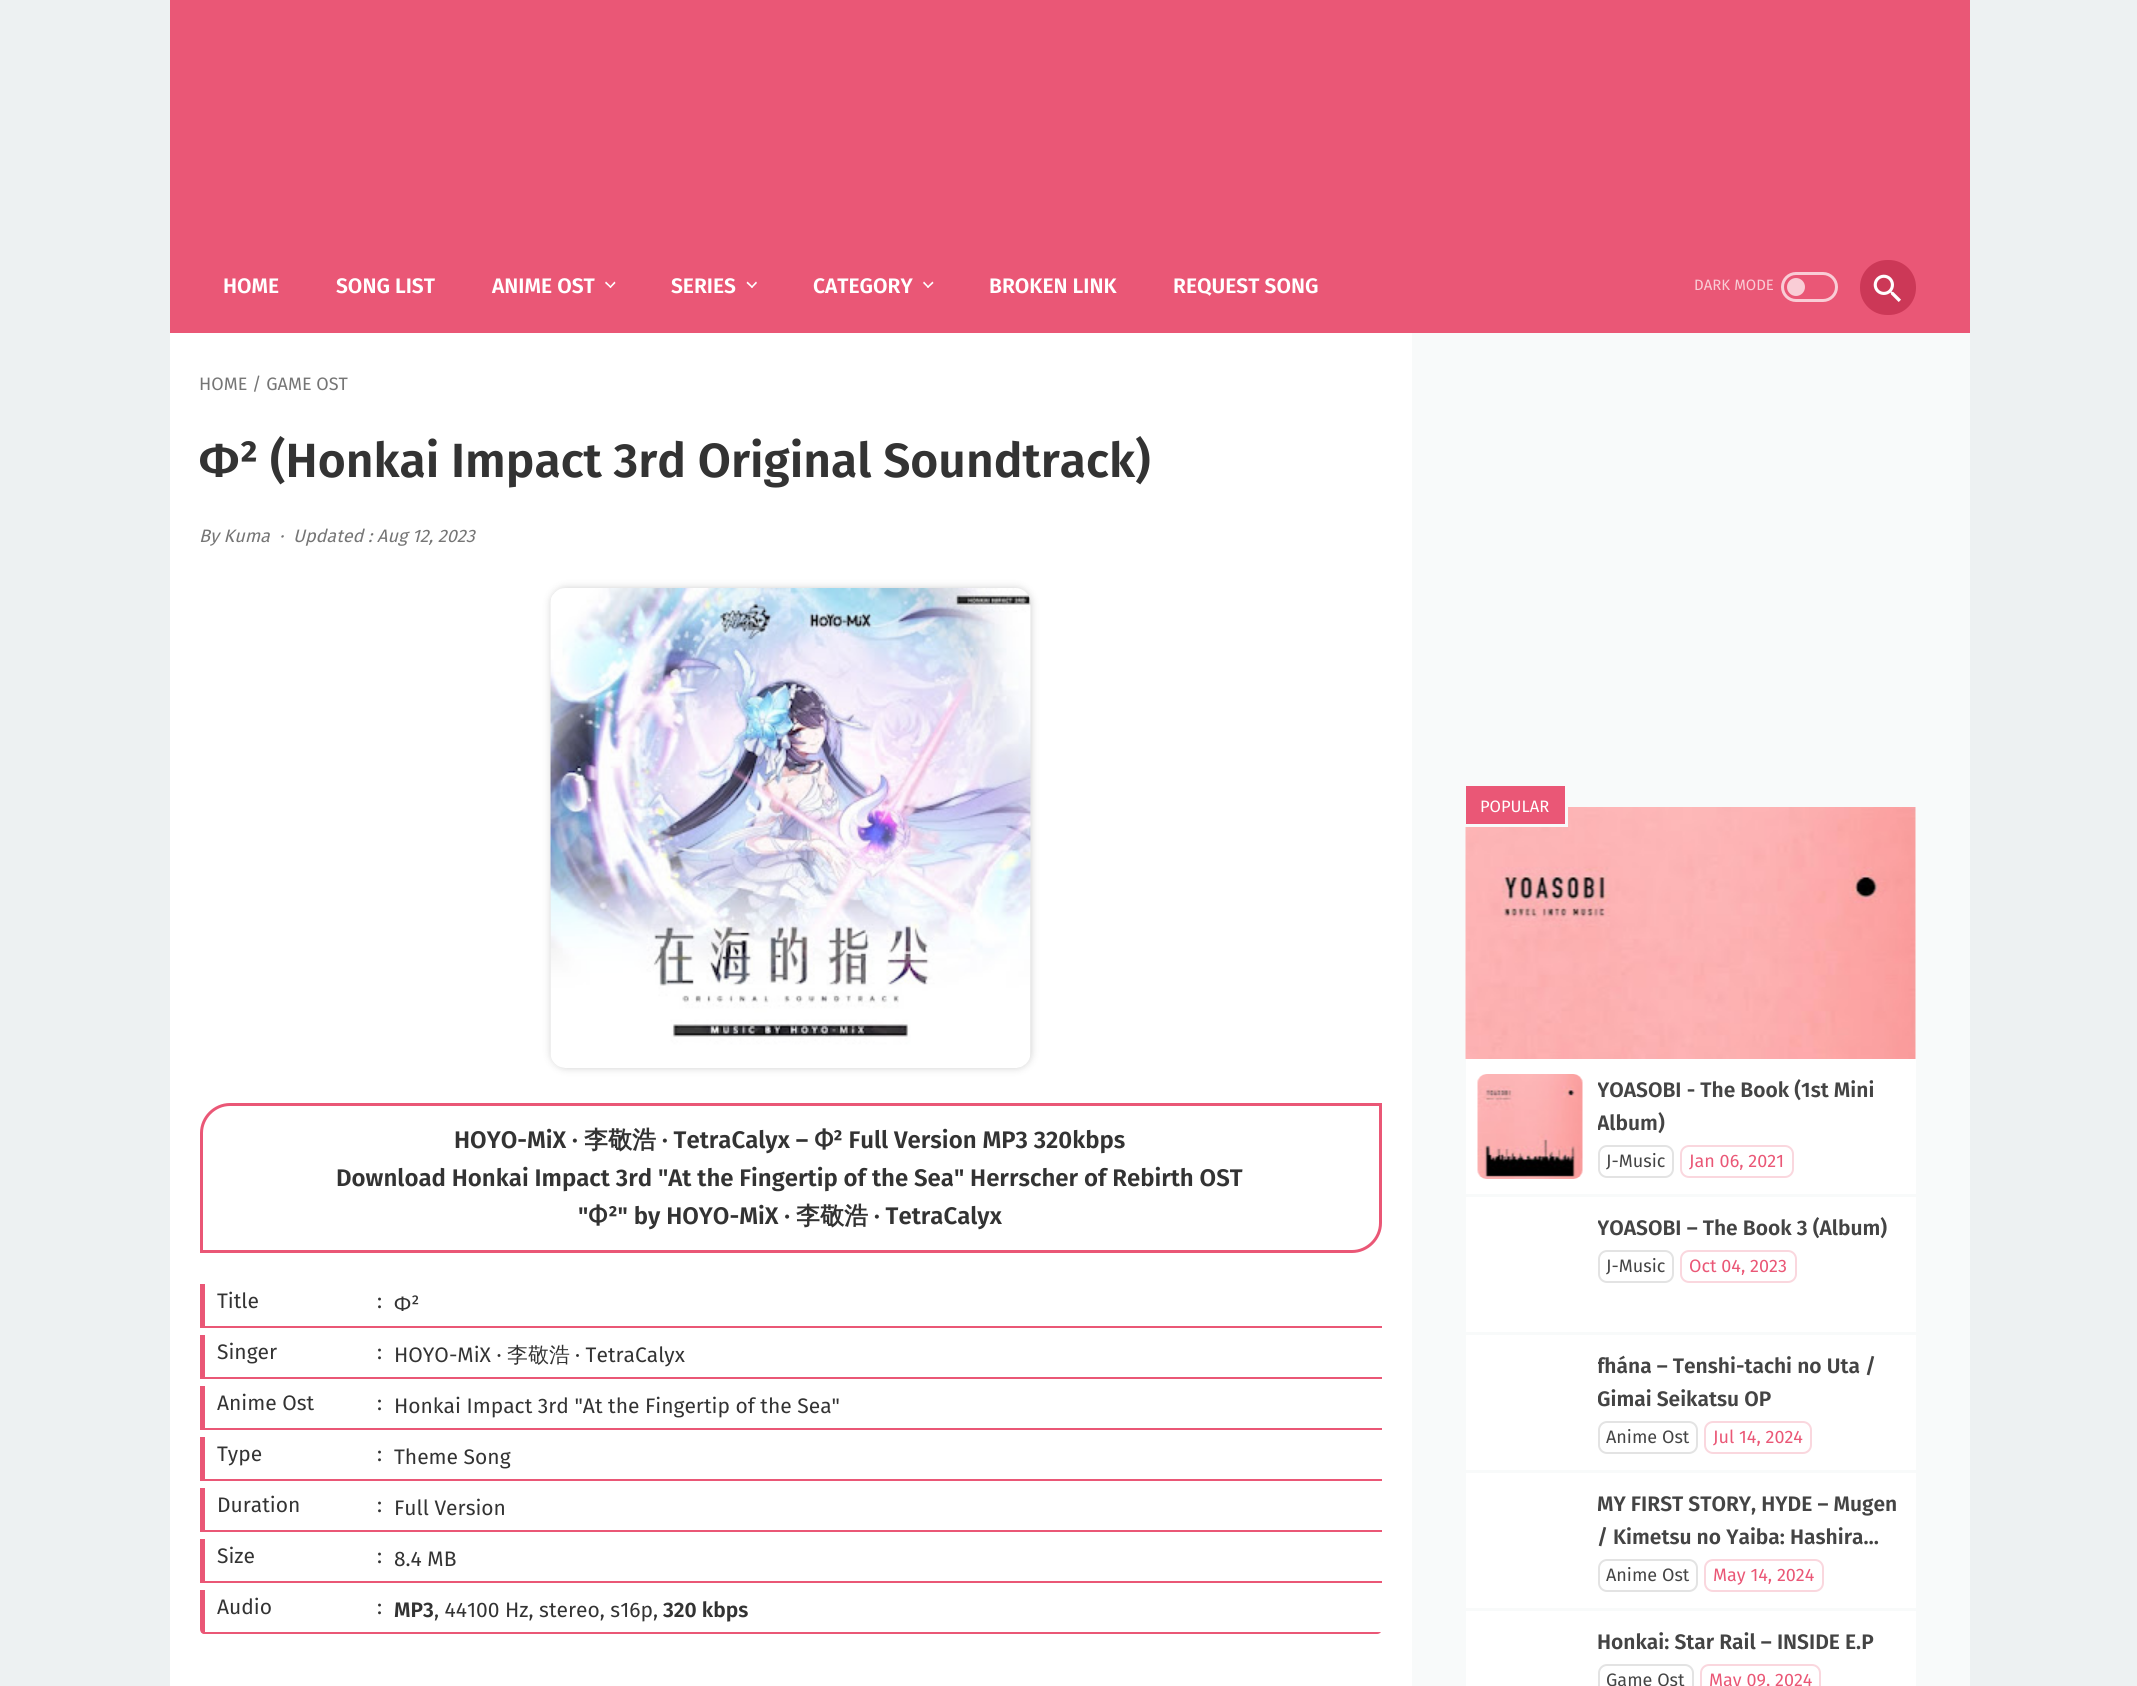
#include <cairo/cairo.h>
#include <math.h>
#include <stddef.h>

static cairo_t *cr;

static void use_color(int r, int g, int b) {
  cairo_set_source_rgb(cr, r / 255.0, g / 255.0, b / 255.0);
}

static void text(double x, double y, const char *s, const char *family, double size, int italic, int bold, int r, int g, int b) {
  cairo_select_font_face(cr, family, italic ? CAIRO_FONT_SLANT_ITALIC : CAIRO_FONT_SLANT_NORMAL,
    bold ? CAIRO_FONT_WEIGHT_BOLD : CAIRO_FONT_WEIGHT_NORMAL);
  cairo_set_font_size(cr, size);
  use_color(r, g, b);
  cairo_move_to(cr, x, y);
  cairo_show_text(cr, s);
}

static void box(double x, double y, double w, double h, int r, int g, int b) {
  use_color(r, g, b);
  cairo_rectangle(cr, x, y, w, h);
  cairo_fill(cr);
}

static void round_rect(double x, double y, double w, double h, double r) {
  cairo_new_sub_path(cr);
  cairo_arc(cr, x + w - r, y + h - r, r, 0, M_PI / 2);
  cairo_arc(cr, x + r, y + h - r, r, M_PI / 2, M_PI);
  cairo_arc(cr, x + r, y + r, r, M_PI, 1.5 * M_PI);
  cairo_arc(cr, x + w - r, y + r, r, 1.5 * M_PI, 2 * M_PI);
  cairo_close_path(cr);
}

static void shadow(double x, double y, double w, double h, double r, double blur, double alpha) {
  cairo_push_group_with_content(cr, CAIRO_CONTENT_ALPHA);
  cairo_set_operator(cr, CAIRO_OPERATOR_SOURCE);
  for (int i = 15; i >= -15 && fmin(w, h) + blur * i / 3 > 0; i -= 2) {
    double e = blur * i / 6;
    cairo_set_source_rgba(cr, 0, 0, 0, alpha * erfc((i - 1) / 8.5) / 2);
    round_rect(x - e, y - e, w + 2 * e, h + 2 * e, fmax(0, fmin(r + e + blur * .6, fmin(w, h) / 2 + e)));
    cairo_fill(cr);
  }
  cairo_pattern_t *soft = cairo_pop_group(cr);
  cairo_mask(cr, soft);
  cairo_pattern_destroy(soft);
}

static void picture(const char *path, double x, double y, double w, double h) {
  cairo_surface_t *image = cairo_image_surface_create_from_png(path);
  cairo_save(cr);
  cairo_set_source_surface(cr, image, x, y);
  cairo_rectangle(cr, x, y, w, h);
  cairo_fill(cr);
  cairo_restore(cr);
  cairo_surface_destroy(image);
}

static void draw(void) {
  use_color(237, 241, 242);
  cairo_paint(cr);
  box(170, 0, 1800, 333, 234, 87, 118);
  use_color(255, 255, 255);
  cairo_new_path(cr);
  cairo_move_to(cr, 609.5, 287);
  cairo_line_to(cr, 614.5, 281.5);
  cairo_line_to(cr, 615.5, 283);
  cairo_line_to(cr, 610.5, 288);
  cairo_close_path(cr);
  cairo_fill(cr);
  cairo_new_path(cr);
  cairo_move_to(cr, 605, 283);
  cairo_line_to(cr, 606, 281.5);
  cairo_line_to(cr, 611.5, 287);
  cairo_line_to(cr, 610.5, 288);
  cairo_close_path(cr);
  cairo_fill(cr);
  cairo_new_path(cr);
  cairo_move_to(cr, 751, 287);
  cairo_line_to(cr, 756, 281.5);
  cairo_line_to(cr, 757, 283);
  cairo_line_to(cr, 752, 288);
  cairo_close_path(cr);
  cairo_fill(cr);
  cairo_new_path(cr);
  cairo_move_to(cr, 746.5, 283);
  cairo_line_to(cr, 747.5, 281.5);
  cairo_line_to(cr, 753, 287);
  cairo_line_to(cr, 752, 288);
  cairo_close_path(cr);
  cairo_fill(cr);
  cairo_new_path(cr);
  cairo_move_to(cr, 927, 287);
  cairo_line_to(cr, 932.5, 281.5);
  cairo_line_to(cr, 933.5, 283);
  cairo_line_to(cr, 928, 288);
  cairo_close_path(cr);
  cairo_fill(cr);
  cairo_new_path(cr);
  cairo_move_to(cr, 923, 283);
  cairo_line_to(cr, 924, 281.5);
  cairo_line_to(cr, 929, 287);
  cairo_line_to(cr, 928, 288);
  cairo_close_path(cr);
  cairo_fill(cr);
  round_rect(1782.5, 273.5, 54, 27, 13.5);
  use_color(249, 205, 214);
  cairo_set_line_width(cr, 3);
  cairo_stroke(cr);
  cairo_arc(cr, 1796, 287, 9, 0, 2 * M_PI);
  cairo_fill(cr);
  use_color(204, 56, 87);
  round_rect(1860, 260, 56, 55, 27);
  cairo_fill(cr);
  picture("img_01.png", 1873, 274, 28, 28);
  box(170, 333, 1242, 1353, 255, 255, 255);
  use_color(0, 0, 0);
  shadow(551, 588, 480, 480, 15, 4, 0.19);
  picture("img_02.png", 550, 588, 481, 480);
  picture("img_03.png", 550, 595, 481, 296);
  cairo_new_path(cr);
  cairo_move_to(cr, 230, 1104.5);
  cairo_line_to(cr, 1380.5, 1104.5);
  cairo_line_to(cr, 1380.5, 1223);
  cairo_curve_to(cr, 1380.5, 1238.5, 1367.5, 1251.5, 1352, 1251.5);
  cairo_line_to(cr, 201.5, 1251.5);
  cairo_line_to(cr, 201.5, 1133);
  cairo_curve_to(cr, 201.5, 1117.5, 214.5, 1104.5, 230, 1104.5);
  cairo_close_path(cr);
  use_color(234, 87, 118);
  cairo_stroke(cr);
  box(200, 1326, 1182, 2, 234, 87, 118);
  box(200, 1284, 5, 44, 234, 87, 118);
  box(200, 1377, 1182, 2, 234, 87, 118);
  box(200, 1335, 5, 44, 234, 87, 118);
  box(200, 1428, 1182, 2, 234, 87, 118);
  box(200, 1386, 5, 44, 234, 87, 118);
  box(200, 1479, 1182, 2, 234, 87, 118);
  box(200, 1437, 5, 44, 234, 87, 118);
  box(200, 1530, 1182, 2, 234, 87, 118);
  box(200, 1488, 5, 44, 234, 87, 118);
  box(200, 1581, 1182, 2, 234, 87, 118);
  box(200, 1539, 5, 44, 234, 87, 118);
  cairo_save(cr);
  round_rect(200, 1277, 1182, 357, 5);
  cairo_clip(cr);
  box(200, 1632, 1182, 2, 234, 87, 118);
  cairo_restore(cr);
  cairo_new_path(cr);
  cairo_move_to(cr, 200, 1590);
  cairo_line_to(cr, 205, 1590);
  cairo_line_to(cr, 205, 1634);
  cairo_curve_to(cr, 202, 1634, 200, 1632, 200, 1629);
  cairo_close_path(cr);
  cairo_fill(cr);
  box(1412, 333, 558, 1353, 248, 250, 250);
  picture("img_04.png", 1465, 807, 451, 252);
  cairo_rectangle(cr, 1464.5, 784.5, 102, 41);
  cairo_stroke(cr);
  box(1466, 786, 99, 38, 234, 87, 118);
  box(1466, 1059, 450, 135, 255, 255, 255);
  picture("img_05.png", 1477, 1074, 106, 105);
  round_rect(1599, 1146, 74, 31, 8);
  use_color(227, 227, 227);
  cairo_set_line_width(cr, 2);
  cairo_stroke(cr);
  round_rect(1681, 1146, 112, 31, 8);
  use_color(250, 215, 222);
  cairo_stroke(cr);
  box(1466, 1197, 450, 135, 255, 255, 255);
  round_rect(1599, 1251, 74, 31, 8);
  use_color(227, 227, 227);
  cairo_stroke(cr);
  round_rect(1681, 1251, 115, 31, 8);
  use_color(250, 215, 222);
  cairo_stroke(cr);
  box(1466, 1335, 450, 135, 255, 255, 255);
  round_rect(1599, 1422, 98, 31, 8);
  use_color(227, 227, 227);
  cairo_stroke(cr);
  round_rect(1705, 1422, 106, 31, 8);
  use_color(250, 215, 222);
  cairo_stroke(cr);
  box(1466, 1473, 450, 135, 255, 255, 255);
  round_rect(1599, 1560, 98, 31, 8);
  use_color(227, 227, 227);
  cairo_stroke(cr);
  round_rect(1705, 1560, 118, 31, 8);
  use_color(250, 215, 222);
  cairo_stroke(cr);
  box(1466, 1611, 450, 75, 255, 255, 255);
  round_rect(1599, 1665, 94, 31, 8);
  use_color(227, 227, 227);
  cairo_stroke(cr);
  round_rect(1701, 1665, 119, 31, 8);
  use_color(250, 215, 222);
  cairo_stroke(cr);
  text(223, 293, "HOME", "Fira Sans SemiBold", 21, 0, 0, 255, 255, 255);
  text(336, 293, "SONG LIST", "Fira Sans SemiBold", 21, 0, 0, 255, 255, 255);
  text(492, 293, "ANIME OST", "Fira Sans SemiBold", 21, 0, 0, 255, 255, 255);
  text(671, 293, "SERIES", "Fira Sans SemiBold", 21, 0, 0, 255, 255, 255);
  text(813, 293, "CATEGORY", "Fira Sans SemiBold", 21, 0, 0, 255, 255, 255);
  text(989, 293, "BROKEN LINK", "Fira Sans SemiBold", 21, 0, 0, 255, 255, 255);
  text(1173, 293, "REQUEST SONG", "Fira Sans SemiBold", 21, 0, 0, 255, 255, 255);
  text(1694, 290, "DARK MODE", "Fira Sans", 15, 0, 0, 249, 205, 214);
  text(199, 390, "HOME / GAME OST", "Fira Sans", 18, 0, 0, 117, 117, 117);
  text(199, 477, "Φ² (Honkai Impact 3rd Original Soundtrack)", "Fira Sans SemiBold", 48, 0, 0, 51, 51, 51);
  text(199, 542, "By Kuma", "Fira Sans", 18, 1, 0, 117, 117, 117);
  text(279, 542, "·", "Fira Sans", 18, 1, 0, 117, 117, 117);
  text(293, 542, "Updated : Aug 12, 2023", "Fira Sans", 18, 1, 0, 117, 117, 117);
  text(454, 1148, "HOYO-MiX ·", "Fira Sans SemiBold", 24, 0, 0, 51, 51, 51);
  text(584, 1148, "李敬浩", "WenQuanYi Zen Hei", 24, 0, 1, 51, 51, 51);
  text(662, 1148, "· TetraCalyx –", "Fira Sans SemiBold", 24, 0, 0, 51, 51, 51);
  text(814, 1148, "Φ", "WenQuanYi Zen Hei", 24, 0, 1, 51, 51, 51);
  text(833, 1148, "² Full Version MP3 320kbps", "Fira Sans SemiBold", 24, 0, 0, 51, 51, 51);
  text(336, 1186, "Download Honkai Impact 3rd \"At the Fingertip of the Sea\" Herrscher of Rebirth OST", "Fira Sans SemiBold", 24, 0, 0, 51, 51, 51);
  text(578, 1224, "\"", "Fira Sans SemiBold", 24, 0, 0, 51, 51, 51);
  text(588, 1224, "Φ", "WenQuanYi Zen Hei", 24, 0, 1, 51, 51, 51);
  text(608, 1224, "²\" by HOYO-MiX ·", "Fira Sans SemiBold", 24, 0, 0, 51, 51, 51);
  text(796, 1224, "李敬浩", "WenQuanYi Zen Hei", 24, 0, 1, 51, 51, 51);
  text(874, 1224, "· TetraCalyx", "Fira Sans SemiBold", 24, 0, 0, 51, 51, 51);
  text(217, 1308, "Title", "Fira Sans", 21, 0, 0, 51, 51, 51);
  text(377, 1308, ":", "Fira Sans", 21, 0, 0, 51, 51, 51);
  text(394, 1311, "Φ²", "Fira Sans", 21, 0, 0, 51, 51, 51);
  text(217, 1359, "Singer", "Fira Sans", 21, 0, 0, 51, 51, 51);
  text(377, 1359, ":", "Fira Sans", 21, 0, 0, 51, 51, 51);
  text(394, 1362, "HOYO-MiX ·", "Fira Sans", 21, 0, 0, 51, 51, 51);
  text(507, 1362, "李敬浩", "WenQuanYi Zen Hei Medium", 21, 0, 0, 51, 51, 51);
  text(575, 1362, "· TetraCalyx", "Fira Sans", 21, 0, 0, 51, 51, 51);
  text(217, 1410, "Anime Ost", "Fira Sans", 21, 0, 0, 51, 51, 51);
  text(377, 1410, ":", "Fira Sans", 21, 0, 0, 51, 51, 51);
  text(394, 1413, "Honkai Impact 3rd \"At the Fingertip of the Sea\"", "Fira Sans", 21, 0, 0, 51, 51, 51);
  text(217, 1461, "Type", "Fira Sans", 21, 0, 0, 51, 51, 51);
  text(377, 1461, ":", "Fira Sans", 21, 0, 0, 51, 51, 51);
  text(394, 1464, "Theme Song", "Fira Sans", 21, 0, 0, 51, 51, 51);
  text(217, 1512, "Duration", "Fira Sans", 21, 0, 0, 51, 51, 51);
  text(377, 1512, ":", "Fira Sans", 21, 0, 0, 51, 51, 51);
  text(394, 1515, "Full Version", "Fira Sans", 21, 0, 0, 51, 51, 51);
  text(217, 1563, "Size", "Fira Sans", 21, 0, 0, 51, 51, 51);
  text(377, 1563, ":", "Fira Sans", 21, 0, 0, 51, 51, 51);
  text(394, 1566, "8.4 MB", "Fira Sans", 21, 0, 0, 51, 51, 51);
  text(217, 1614, "Audio", "Fira Sans", 21, 0, 0, 51, 51, 51);
  text(377, 1614, ":", "Fira Sans", 21, 0, 0, 51, 51, 51);
  text(394, 1617, "MP3", "Fira Sans SemiBold", 21, 0, 0, 51, 51, 51);
  text(434, 1617, ", 44100 Hz, stereo, s16p,", "Fira Sans", 21, 0, 0, 51, 51, 51);
  text(663, 1617, "320 kbps", "Fira Sans SemiBold", 21, 0, 0, 51, 51, 51);
  text(1480, 812, "POPULAR", "Fira Sans", 16.5, 0, 0, 255, 255, 255);
  cairo_save(cr);
  cairo_rectangle(cr, 1598, 1074, 306, 66);
  cairo_clip(cr);
  text(1597, 1097, "YOASOBI - The Book (1st Mini", "Fira Sans SemiBold", 21, 0, 0, 68, 68, 68);
  text(1597, 1130, "Album)", "Fira Sans SemiBold", 21, 0, 0, 68, 68, 68);
  cairo_restore(cr);
  text(1606, 1167, "J-Music", "Fira Sans", 18, 0, 0, 68, 68, 68);
  text(1689, 1167, "Jan 06, 2021", "Fira Sans", 18, 0, 0, 234, 87, 118);
  cairo_save(cr);
  cairo_rectangle(cr, 1598, 1212, 306, 33);
  cairo_clip(cr);
  text(1597, 1235, "YOASOBI – The Book 3 (Album)", "Fira Sans SemiBold", 21, 0, 0, 68, 68, 68);
  cairo_restore(cr);
  text(1606, 1272, "J-Music", "Fira Sans", 18, 0, 0, 68, 68, 68);
  text(1689, 1272, "Oct 04, 2023", "Fira Sans", 18, 0, 0, 234, 87, 118);
  cairo_save(cr);
  cairo_rectangle(cr, 1598, 1350, 306, 66);
  cairo_clip(cr);
  text(1597, 1373, "fhána – Tenshi-tachi no Uta /", "Fira Sans SemiBold", 21, 0, 0, 68, 68, 68);
  text(1597, 1406, "Gimai Seikatsu OP", "Fira Sans SemiBold", 21, 0, 0, 68, 68, 68);
  cairo_restore(cr);
  text(1606, 1443, "Anime Ost", "Fira Sans", 18, 0, 0, 68, 68, 68);
  text(1713, 1443, "Jul 14, 2024", "Fira Sans", 18, 0, 0, 234, 87, 118);
  cairo_save(cr);
  cairo_rectangle(cr, 1598, 1488, 306, 66);
  cairo_clip(cr);
  text(1597, 1511, "MY FIRST STORY, HYDE – Mugen", "Fira Sans SemiBold", 21, 0, 0, 68, 68, 68);
  cairo_restore(cr);
  text(1597, 1544, "/ Kimetsu no Yaiba: Hashira…", "Fira Sans SemiBold", 21, 0, 0, 68, 68, 68);
  text(1606, 1581, "Anime Ost", "Fira Sans", 18, 0, 0, 68, 68, 68);
  text(1713, 1581, "May 14, 2024", "Fira Sans", 18, 0, 0, 234, 87, 118);
  text(1597, 1649, "Honkai: Star Rail – INSIDE E.P", "Fira Sans SemiBold", 21, 0, 0, 68, 68, 68);
  text(1606, 1686, "Game Ost", "Fira Sans", 18, 0, 0, 68, 68, 68);
  text(1709, 1686, "May 09, 2024", "Fira Sans", 18, 0, 0, 234, 87, 118);
}

int main(void) {
  cairo_surface_t *surface = cairo_image_surface_create(CAIRO_FORMAT_RGB24, 2137, 1686);
  cr = cairo_create(surface);
  cairo_font_options_t *options = cairo_font_options_create();
  cairo_font_options_set_hint_metrics(options, CAIRO_HINT_METRICS_OFF);
  cairo_font_options_set_hint_style(options, CAIRO_HINT_STYLE_NONE);
  cairo_set_font_options(cr, options);
  cairo_set_miter_limit(cr, 4);
  draw();
  cairo_surface_write_to_png(surface, "out.png");
  cairo_font_options_destroy(options);
  cairo_destroy(cr);
  cairo_surface_destroy(surface);
  return 0;
}
